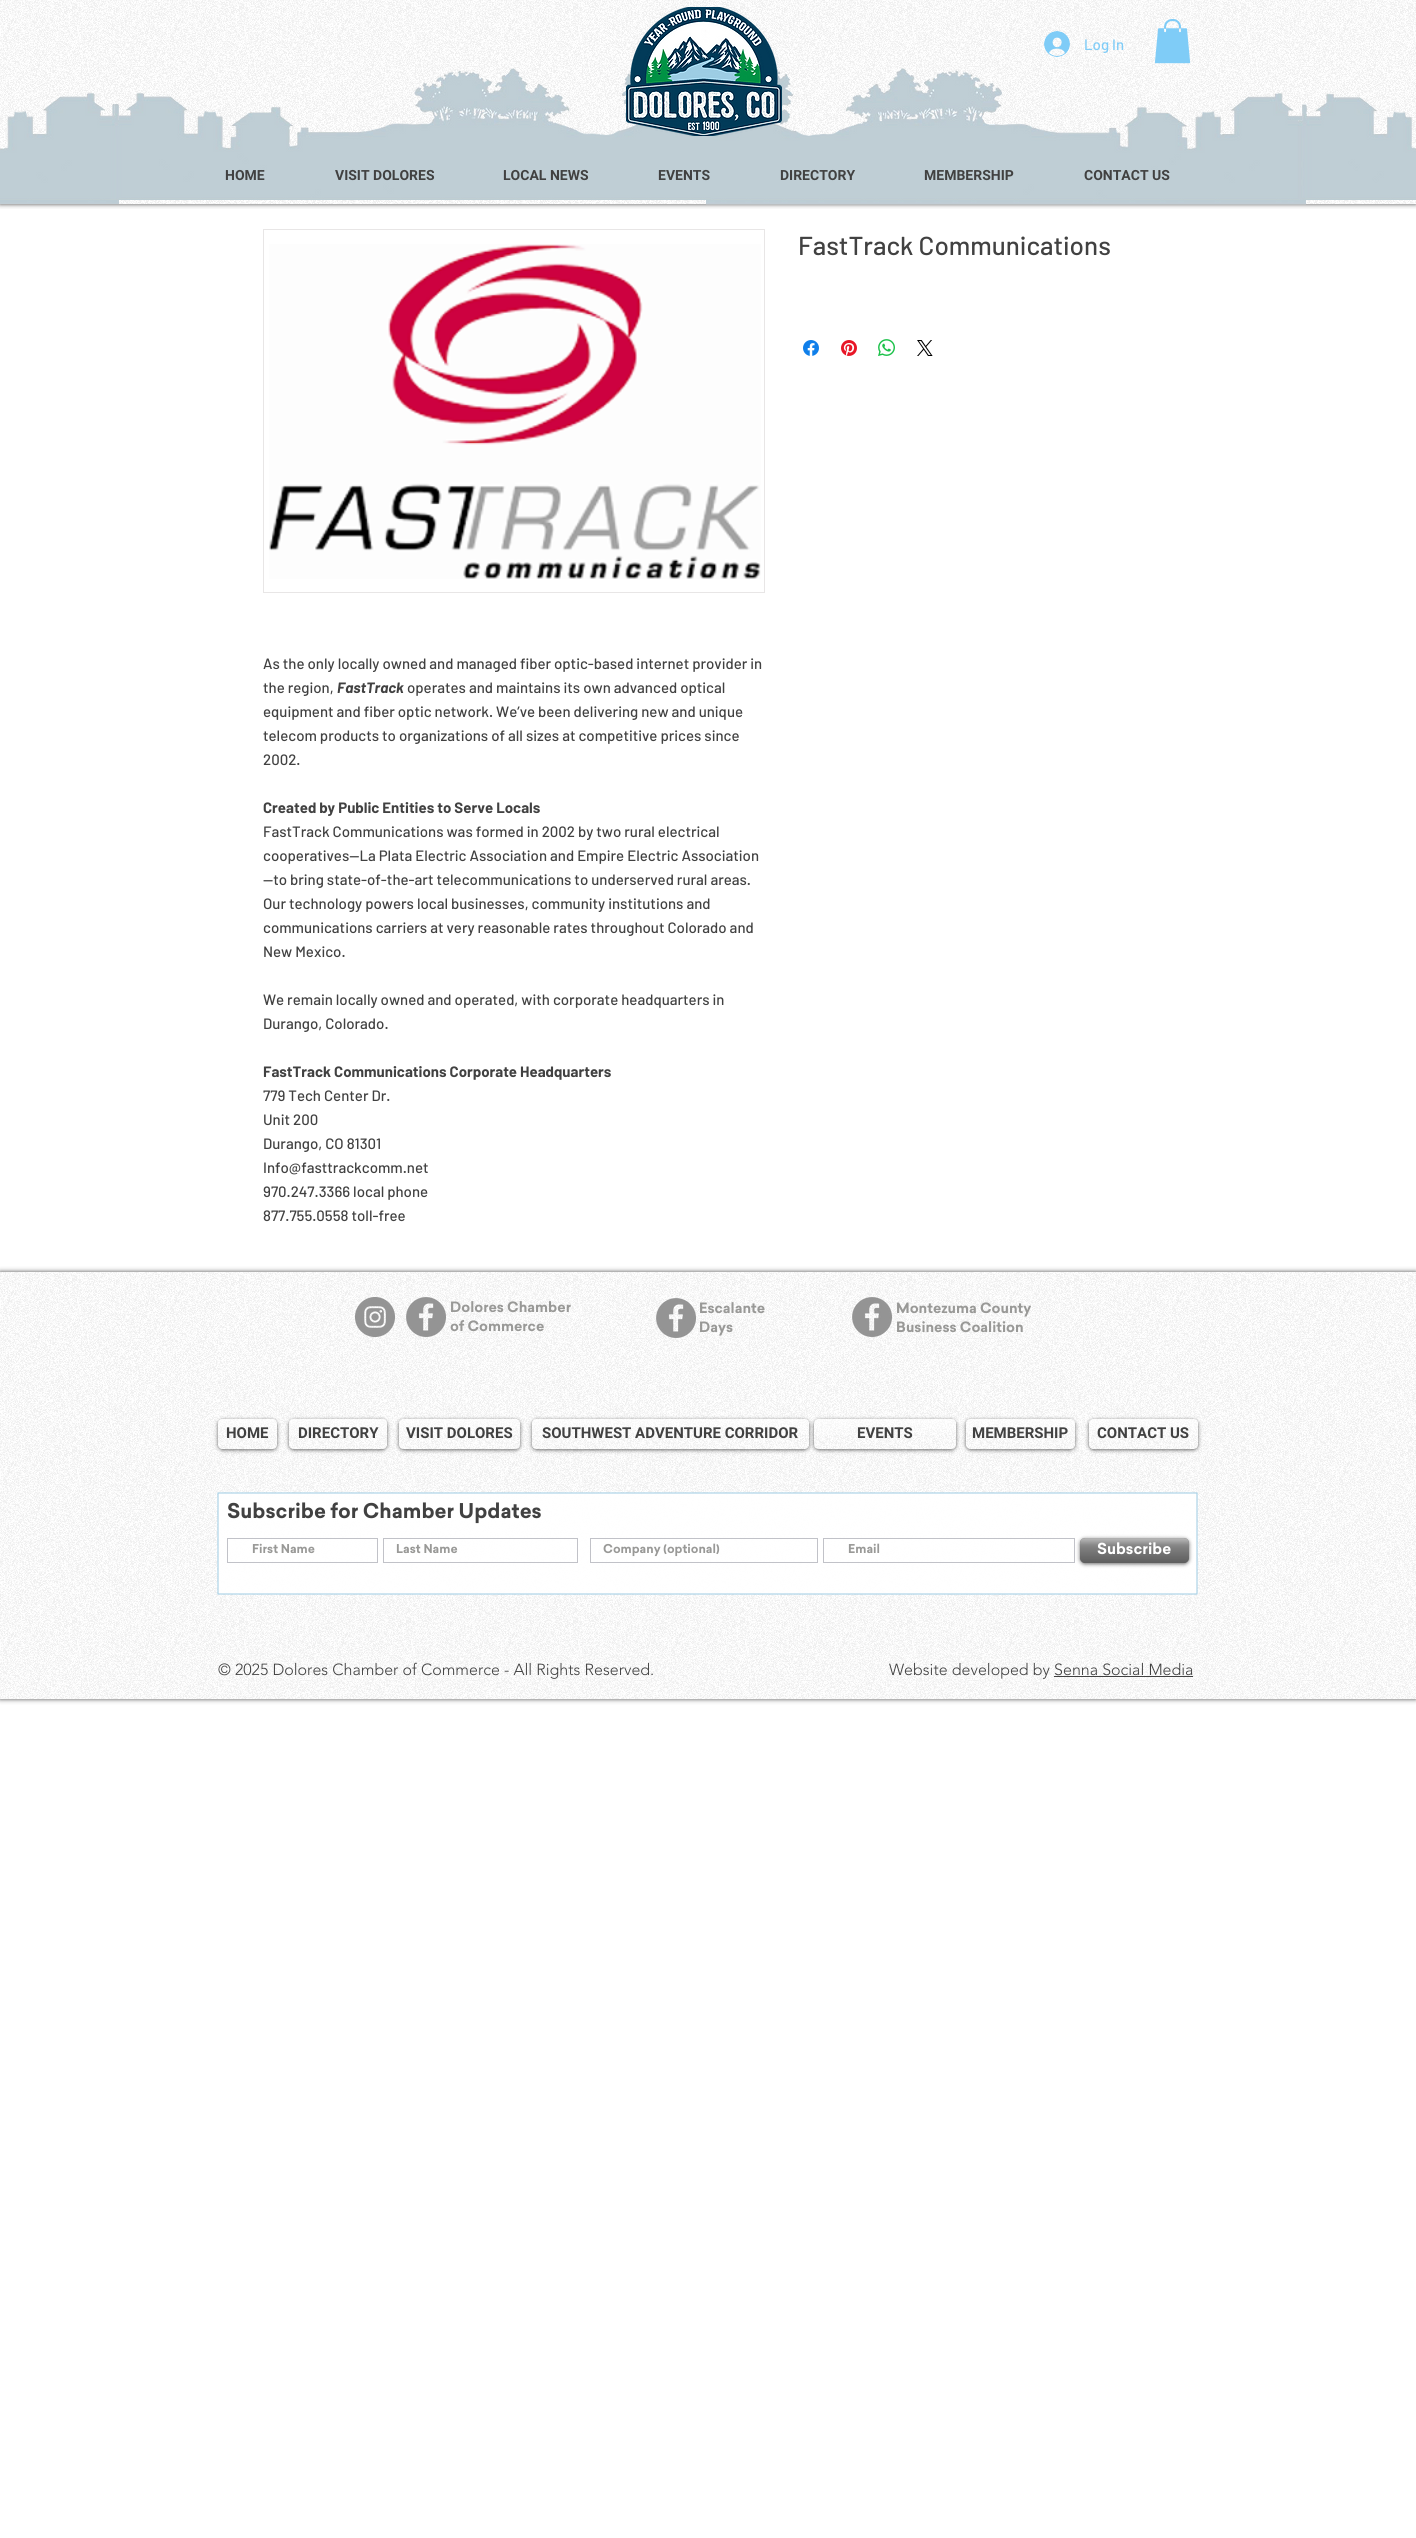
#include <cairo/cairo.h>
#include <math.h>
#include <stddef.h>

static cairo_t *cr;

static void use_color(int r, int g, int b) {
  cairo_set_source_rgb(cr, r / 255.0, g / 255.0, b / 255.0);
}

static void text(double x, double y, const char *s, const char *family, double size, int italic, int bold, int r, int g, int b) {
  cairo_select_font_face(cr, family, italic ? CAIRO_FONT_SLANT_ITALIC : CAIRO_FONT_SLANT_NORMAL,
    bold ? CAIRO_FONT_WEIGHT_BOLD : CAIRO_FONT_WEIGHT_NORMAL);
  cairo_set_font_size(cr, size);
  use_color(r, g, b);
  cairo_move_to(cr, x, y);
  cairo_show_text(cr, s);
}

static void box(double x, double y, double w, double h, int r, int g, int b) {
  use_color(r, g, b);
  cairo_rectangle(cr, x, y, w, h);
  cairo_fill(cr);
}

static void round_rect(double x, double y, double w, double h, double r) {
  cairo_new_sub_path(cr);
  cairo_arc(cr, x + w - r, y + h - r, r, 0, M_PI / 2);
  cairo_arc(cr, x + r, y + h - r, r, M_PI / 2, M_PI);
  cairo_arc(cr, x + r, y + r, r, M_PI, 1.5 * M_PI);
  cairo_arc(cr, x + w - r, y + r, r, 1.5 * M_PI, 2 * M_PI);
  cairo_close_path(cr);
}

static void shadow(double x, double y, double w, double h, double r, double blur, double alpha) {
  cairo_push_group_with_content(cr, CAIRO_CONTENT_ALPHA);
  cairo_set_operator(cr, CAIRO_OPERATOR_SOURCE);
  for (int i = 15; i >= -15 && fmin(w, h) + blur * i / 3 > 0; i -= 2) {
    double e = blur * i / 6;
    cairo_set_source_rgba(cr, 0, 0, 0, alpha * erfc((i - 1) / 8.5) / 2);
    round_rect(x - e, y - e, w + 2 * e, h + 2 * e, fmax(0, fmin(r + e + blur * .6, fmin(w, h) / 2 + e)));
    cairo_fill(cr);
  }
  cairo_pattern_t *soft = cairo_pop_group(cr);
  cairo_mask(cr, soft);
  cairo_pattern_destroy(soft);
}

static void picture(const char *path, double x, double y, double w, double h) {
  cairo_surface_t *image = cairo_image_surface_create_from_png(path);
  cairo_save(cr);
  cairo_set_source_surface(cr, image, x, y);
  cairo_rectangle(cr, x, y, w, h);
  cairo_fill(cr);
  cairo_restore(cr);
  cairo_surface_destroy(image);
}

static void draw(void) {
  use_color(255, 255, 255);
  cairo_paint(cr);
  cairo_save(cr);
  cairo_rectangle(cr, 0, 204, 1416, 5);
  cairo_clip(cr);
  use_color(0, 0, 0);
  shadow(0, 0, 1416, 204, 0, 2.5, 0.7);
  cairo_restore(cr);
  picture("img_01.png", 0, 0, 1416, 204);
  picture("img_07.png", 706, 67, 600, 138);
  picture("img_06.png", 112, 68, 599, 132);
  picture("img_02.png", 626, 7, 156, 129);
  picture("img_03.png", 1044, 31, 26, 26);
  picture("img_04.png", 1154, 19, 37, 45);
  picture("img_05.png", 0, 93, 119, 111);
  picture("img_08.png", 1298, 93, 118, 107);
  picture("img_09.png", 803, 340, 16, 16);
  picture("img_10.png", 841, 340, 16, 16);
  picture("img_11.png", 878, 339, 17, 17);
  picture("img_12.png", 917, 340, 16, 16);
  cairo_rectangle(cr, 263.5, 229.5, 501, 363);
  use_color(232, 230, 230);
  cairo_set_line_width(cr, 1);
  cairo_stroke(cr);
  picture("img_13.png", 269, 244, 492, 335);
  cairo_save(cr);
  cairo_set_fill_rule(cr, CAIRO_FILL_RULE_EVEN_ODD);
  cairo_new_path(cr);
  cairo_move_to(cr, 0, 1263);
  cairo_line_to(cr, 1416, 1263);
  cairo_line_to(cr, 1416, 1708);
  cairo_line_to(cr, 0, 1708);
  cairo_close_path(cr);
  cairo_move_to(cr, 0, 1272);
  cairo_line_to(cr, 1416, 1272);
  cairo_line_to(cr, 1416, 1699);
  cairo_line_to(cr, 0, 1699);
  cairo_close_path(cr);
  cairo_clip(cr);
  use_color(0, 0, 0);
  shadow(0, 1272, 1416, 427, 0, 2.5, 0.7);
  cairo_restore(cr);
  picture("img_14.png", 0, 1272, 1416, 427);
  picture("img_15.png", 355, 1297, 40, 40);
  picture("img_16.png", 406, 1297, 40, 40);
  picture("img_17.png", 656, 1298, 40, 40);
  picture("img_18.png", 852, 1297, 40, 40);
  cairo_save(cr);
  cairo_set_fill_rule(cr, CAIRO_FILL_RULE_EVEN_ODD);
  cairo_new_path(cr);
  cairo_move_to(cr, 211, 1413);
  cairo_line_to(cr, 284, 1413);
  cairo_line_to(cr, 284, 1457);
  cairo_line_to(cr, 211, 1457);
  cairo_close_path(cr);
  cairo_move_to(cr, 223, 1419);
  cairo_line_to(cr, 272, 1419);
  cairo_curve_to(cr, 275, 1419, 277, 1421, 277, 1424);
  cairo_line_to(cr, 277, 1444);
  cairo_curve_to(cr, 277, 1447, 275, 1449, 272, 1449);
  cairo_line_to(cr, 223, 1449);
  cairo_curve_to(cr, 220, 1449, 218, 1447, 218, 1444);
  cairo_line_to(cr, 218, 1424);
  cairo_curve_to(cr, 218, 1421, 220, 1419, 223, 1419);
  cairo_close_path(cr);
  cairo_clip(cr);
  use_color(0, 0, 0);
  shadow(218, 1420, 59, 30, 5, 2, 0.6);
  cairo_restore(cr);
  picture("img_19.png", 218, 1419, 59, 16);
  cairo_save(cr);
  cairo_set_fill_rule(cr, CAIRO_FILL_RULE_EVEN_ODD);
  cairo_new_path(cr);
  cairo_move_to(cr, 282, 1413);
  cairo_line_to(cr, 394, 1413);
  cairo_line_to(cr, 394, 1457);
  cairo_line_to(cr, 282, 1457);
  cairo_close_path(cr);
  cairo_move_to(cr, 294, 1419);
  cairo_line_to(cr, 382, 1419);
  cairo_curve_to(cr, 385, 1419, 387, 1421, 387, 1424);
  cairo_line_to(cr, 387, 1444);
  cairo_curve_to(cr, 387, 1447, 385, 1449, 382, 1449);
  cairo_line_to(cr, 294, 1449);
  cairo_curve_to(cr, 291, 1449, 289, 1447, 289, 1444);
  cairo_line_to(cr, 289, 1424);
  cairo_curve_to(cr, 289, 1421, 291, 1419, 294, 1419);
  cairo_close_path(cr);
  cairo_clip(cr);
  use_color(0, 0, 0);
  shadow(289, 1420, 98, 30, 5, 2, 0.6);
  cairo_restore(cr);
  picture("img_20.png", 289, 1419, 98, 16);
  cairo_save(cr);
  cairo_set_fill_rule(cr, CAIRO_FILL_RULE_EVEN_ODD);
  cairo_new_path(cr);
  cairo_move_to(cr, 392, 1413);
  cairo_line_to(cr, 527, 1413);
  cairo_line_to(cr, 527, 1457);
  cairo_line_to(cr, 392, 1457);
  cairo_close_path(cr);
  cairo_move_to(cr, 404, 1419);
  cairo_line_to(cr, 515, 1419);
  cairo_curve_to(cr, 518, 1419, 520, 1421, 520, 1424);
  cairo_line_to(cr, 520, 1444);
  cairo_curve_to(cr, 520, 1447, 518, 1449, 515, 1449);
  cairo_line_to(cr, 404, 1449);
  cairo_curve_to(cr, 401, 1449, 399, 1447, 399, 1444);
  cairo_line_to(cr, 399, 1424);
  cairo_curve_to(cr, 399, 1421, 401, 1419, 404, 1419);
  cairo_close_path(cr);
  cairo_clip(cr);
  use_color(0, 0, 0);
  shadow(399, 1420, 121, 30, 5, 2, 0.6);
  cairo_restore(cr);
  picture("img_21.png", 399, 1419, 121, 16);
  cairo_save(cr);
  cairo_set_fill_rule(cr, CAIRO_FILL_RULE_EVEN_ODD);
  cairo_new_path(cr);
  cairo_move_to(cr, 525, 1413);
  cairo_line_to(cr, 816, 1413);
  cairo_line_to(cr, 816, 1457);
  cairo_line_to(cr, 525, 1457);
  cairo_close_path(cr);
  cairo_move_to(cr, 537, 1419);
  cairo_line_to(cr, 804, 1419);
  cairo_curve_to(cr, 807, 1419, 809, 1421, 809, 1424);
  cairo_line_to(cr, 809, 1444);
  cairo_curve_to(cr, 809, 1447, 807, 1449, 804, 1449);
  cairo_line_to(cr, 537, 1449);
  cairo_curve_to(cr, 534, 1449, 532, 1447, 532, 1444);
  cairo_line_to(cr, 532, 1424);
  cairo_curve_to(cr, 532, 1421, 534, 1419, 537, 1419);
  cairo_close_path(cr);
  cairo_clip(cr);
  use_color(0, 0, 0);
  shadow(532, 1420, 277, 30, 5, 2, 0.6);
  cairo_restore(cr);
  picture("img_22.png", 532, 1419, 277, 16);
  cairo_save(cr);
  cairo_set_fill_rule(cr, CAIRO_FILL_RULE_EVEN_ODD);
  cairo_new_path(cr);
  cairo_move_to(cr, 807, 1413);
  cairo_line_to(cr, 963, 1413);
  cairo_line_to(cr, 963, 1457);
  cairo_line_to(cr, 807, 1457);
  cairo_close_path(cr);
  cairo_move_to(cr, 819, 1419);
  cairo_line_to(cr, 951, 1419);
  cairo_curve_to(cr, 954, 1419, 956, 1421, 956, 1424);
  cairo_line_to(cr, 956, 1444);
  cairo_curve_to(cr, 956, 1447, 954, 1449, 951, 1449);
  cairo_line_to(cr, 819, 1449);
  cairo_curve_to(cr, 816, 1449, 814, 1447, 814, 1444);
  cairo_line_to(cr, 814, 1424);
  cairo_curve_to(cr, 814, 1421, 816, 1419, 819, 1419);
  cairo_close_path(cr);
  cairo_clip(cr);
  use_color(0, 0, 0);
  shadow(814, 1420, 142, 30, 5, 2, 0.6);
  cairo_restore(cr);
  picture("img_23.png", 814, 1419, 142, 16);
  cairo_save(cr);
  cairo_set_fill_rule(cr, CAIRO_FILL_RULE_EVEN_ODD);
  cairo_new_path(cr);
  cairo_move_to(cr, 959, 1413);
  cairo_line_to(cr, 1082, 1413);
  cairo_line_to(cr, 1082, 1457);
  cairo_line_to(cr, 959, 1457);
  cairo_close_path(cr);
  cairo_move_to(cr, 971, 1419);
  cairo_line_to(cr, 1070, 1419);
  cairo_curve_to(cr, 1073, 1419, 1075, 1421, 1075, 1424);
  cairo_line_to(cr, 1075, 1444);
  cairo_curve_to(cr, 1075, 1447, 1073, 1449, 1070, 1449);
  cairo_line_to(cr, 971, 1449);
  cairo_curve_to(cr, 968, 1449, 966, 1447, 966, 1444);
  cairo_line_to(cr, 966, 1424);
  cairo_curve_to(cr, 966, 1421, 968, 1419, 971, 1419);
  cairo_close_path(cr);
  cairo_clip(cr);
  use_color(0, 0, 0);
  shadow(966, 1420, 109, 30, 5, 2, 0.6);
  cairo_restore(cr);
  picture("img_24.png", 966, 1419, 109, 16);
  cairo_save(cr);
  cairo_set_fill_rule(cr, CAIRO_FILL_RULE_EVEN_ODD);
  cairo_new_path(cr);
  cairo_move_to(cr, 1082, 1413);
  cairo_line_to(cr, 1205, 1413);
  cairo_line_to(cr, 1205, 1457);
  cairo_line_to(cr, 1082, 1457);
  cairo_close_path(cr);
  cairo_move_to(cr, 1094, 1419);
  cairo_line_to(cr, 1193, 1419);
  cairo_curve_to(cr, 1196, 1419, 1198, 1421, 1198, 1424);
  cairo_line_to(cr, 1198, 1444);
  cairo_curve_to(cr, 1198, 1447, 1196, 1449, 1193, 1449);
  cairo_line_to(cr, 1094, 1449);
  cairo_curve_to(cr, 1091, 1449, 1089, 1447, 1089, 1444);
  cairo_line_to(cr, 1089, 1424);
  cairo_curve_to(cr, 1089, 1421, 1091, 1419, 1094, 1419);
  cairo_close_path(cr);
  cairo_clip(cr);
  use_color(0, 0, 0);
  shadow(1089, 1420, 109, 30, 5, 2, 0.6);
  cairo_restore(cr);
  picture("img_25.png", 1089, 1419, 109, 16);
  cairo_set_source_rgba(cr, 1, 1, 1, 0.96);
  cairo_rectangle(cr, 218, 1493, 979, 101);
  cairo_fill(cr);
  cairo_new_path(cr);
  cairo_move_to(cr, 1197, 1493);
  cairo_line_to(cr, 1197, 1594);
  cairo_line_to(cr, 218, 1594);
  cairo_line_to(cr, 218, 1493);
  cairo_close_path(cr);
  use_color(158, 204, 228);
  cairo_stroke(cr);
  cairo_rectangle(cr, 227.5, 1538.5, 150, 24);
  use_color(193, 194, 200);
  cairo_stroke(cr);
  cairo_rectangle(cr, 383.5, 1538.5, 194, 24);
  cairo_stroke(cr);
  cairo_rectangle(cr, 590.5, 1538.5, 227, 24);
  cairo_stroke(cr);
  cairo_rectangle(cr, 823.5, 1538.5, 251, 24);
  cairo_stroke(cr);
  use_color(0, 0, 0);
  shadow(1080, 1539, 109, 25, 5, 2, 0.6);
  use_color(65, 65, 65);
  round_rect(1080, 1538, 109, 25, 5);
  cairo_fill(cr);
  picture("img_26.png", 1080, 1538, 109, 25);
  box(1054, 1676, 139, 1, 65, 65, 65);
  text(1084, 50, "Log In", "Barlow Medium", 15, 0, 0, 127, 204, 247);
  text(225, 180, "HOME", "Roboto", 14, 0, 1, 65, 65, 65);
  text(335, 180, "VISIT DOLORES", "Roboto", 14, 0, 1, 65, 65, 65);
  text(503, 180, "LOCAL NEWS", "Roboto", 14, 0, 1, 65, 65, 65);
  text(658, 180, "EVENTS", "Roboto", 14, 0, 1, 65, 65, 65);
  text(780, 180, "DIRECTORY", "Roboto", 14, 0, 1, 65, 65, 65);
  text(924, 180, "MEMBERSHIP", "Roboto", 14, 0, 1, 65, 65, 65);
  text(1084, 180, "CONTACT US", "Roboto", 14, 0, 1, 65, 65, 65);
  text(798, 255, "FastTrack Communications", "Barlow Medium", 26, 0, 0, 65, 65, 65);
  text(263, 669, "As the only locally owned and managed fiber optic-based internet provider in", "Barlow Medium", 15, 0, 0, 65, 65, 65);
  text(263, 693, "the region,", "Barlow Medium", 15, 0, 0, 65, 65, 65);
  text(337, 693, "FastTrack", "Barlow", 15, 1, 1, 65, 65, 65);
  text(407, 693, "operates and maintains its own advanced optical", "Barlow Medium", 15, 0, 0, 65, 65, 65);
  text(263, 717, "equipment and fiber optic network. We’ve been delivering new and unique", "Barlow Medium", 15, 0, 0, 65, 65, 65);
  text(263, 741, "telecom products to organizations of all sizes at competitive prices since", "Barlow Medium", 15, 0, 0, 65, 65, 65);
  text(263, 765, "2002.", "Barlow Medium", 15, 0, 0, 65, 65, 65);
  text(263, 813, "Created by Public Entities to Serve Locals", "Barlow", 15, 0, 1, 65, 65, 65);
  text(263, 837, "FastTrack Communications was formed in 2002 by two rural electrical", "Barlow Medium", 15, 0, 0, 65, 65, 65);
  text(263, 861, "cooperatives—La Plata Electric Association and Empire Electric Association", "Barlow Medium", 15, 0, 0, 65, 65, 65);
  text(263, 885, "—to bring state-of-the-art telecommunications to underserved rural areas.", "Barlow Medium", 15, 0, 0, 65, 65, 65);
  text(263, 909, "Our technology powers local businesses, community institutions and", "Barlow Medium", 15, 0, 0, 65, 65, 65);
  text(263, 933, "communications carriers at very reasonable rates throughout Colorado and", "Barlow Medium", 15, 0, 0, 65, 65, 65);
  text(263, 957, "New Mexico.", "Barlow Medium", 15, 0, 0, 65, 65, 65);
  text(263, 1005, "We remain locally owned and operated, with corporate headquarters in", "Barlow Medium", 15, 0, 0, 65, 65, 65);
  text(263, 1029, "Durango, Colorado.", "Barlow Medium", 15, 0, 0, 65, 65, 65);
  text(263, 1077, "FastTrack Communications Corporate Headquarters", "Barlow", 15, 0, 1, 65, 65, 65);
  text(263, 1101, "779 Tech Center Dr.", "Barlow Medium", 15, 0, 0, 65, 65, 65);
  text(263, 1125, "Unit 200", "Barlow Medium", 15, 0, 0, 65, 65, 65);
  text(263, 1149, "Durango, CO 81301", "Barlow Medium", 15, 0, 0, 65, 65, 65);
  text(263, 1173, "Info@fasttrackcomm.net", "Barlow Medium", 15, 0, 0, 65, 65, 65);
  text(263, 1197, "970.247.3366 local phone", "Barlow Medium", 15, 0, 0, 65, 65, 65);
  text(263, 1221, "877.755.0558 toll-free", "Barlow Medium", 15, 0, 0, 65, 65, 65);
  text(450, 1312, "Dolores Chamber", "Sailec", 14, 0, 1, 153, 153, 151);
  text(450, 1331, "of Commerce", "Sailec", 14, 0, 1, 153, 153, 151);
  text(699, 1313, "Escalante", "Sailec", 14, 0, 1, 153, 153, 151);
  text(699, 1332, "Days", "Sailec", 14, 0, 1, 153, 153, 151);
  text(896, 1313, "Montezuma County", "Sailec", 14, 0, 1, 153, 153, 151);
  text(896, 1332, "Business Coalition", "Sailec", 14, 0, 1, 153, 153, 151);
  text(226, 1438, "HOME", "Roboto", 15, 0, 1, 65, 65, 65);
  text(298, 1438, "DIRECTORY", "Roboto", 15, 0, 1, 65, 65, 65);
  text(406, 1438, "VISIT DOLORES", "Roboto", 15, 0, 1, 65, 65, 65);
  text(542, 1438, "SOUTHWEST ADVENTURE CORRIDOR", "Roboto", 15, 0, 1, 65, 65, 65);
  text(857, 1438, "EVENTS", "Roboto", 15, 0, 1, 65, 65, 65);
  text(972, 1438, "MEMBERSHIP", "Roboto", 15, 0, 1, 65, 65, 65);
  text(1097, 1438, "CONTACT US", "Roboto", 15, 0, 1, 65, 65, 65);
  text(227, 1518, "Subscribe for Chamber Updates", "Sailec", 20, 0, 1, 65, 65, 65);
  text(252, 1553, "First Name", "Sailec", 12, 0, 1, 153, 153, 151);
  text(396, 1553, "Last Name", "Sailec", 12, 0, 1, 153, 153, 151);
  text(603, 1553, "Company (optional)", "Sailec", 12, 0, 1, 153, 153, 151);
  text(848, 1553, "Email", "Sailec", 12, 0, 1, 153, 153, 151);
  text(1097, 1554, "Subscribe", "Sailec", 15, 0, 1, 255, 255, 255);
  text(218, 1675, "© 2025 Dolores Chamber of Commerce - All Rights Reserved.", "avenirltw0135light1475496 Light", 16, 0, 0, 65, 65, 65);
  text(889, 1675, "Website developed by Senna Social Media", "avenirltw0135light1475496 Light", 16, 0, 0, 65, 65, 65);
}

int main(void) {
  cairo_surface_t *surface = cairo_image_surface_create(CAIRO_FORMAT_RGB24, 1416, 2538);
  cr = cairo_create(surface);
  cairo_font_options_t *options = cairo_font_options_create();
  cairo_font_options_set_hint_metrics(options, CAIRO_HINT_METRICS_OFF);
  cairo_font_options_set_hint_style(options, CAIRO_HINT_STYLE_NONE);
  cairo_set_font_options(cr, options);
  cairo_set_miter_limit(cr, 4);
  draw();
  cairo_surface_write_to_png(surface, "out.png");
  cairo_font_options_destroy(options);
  cairo_destroy(cr);
  cairo_surface_destroy(surface);
  return 0;
}
